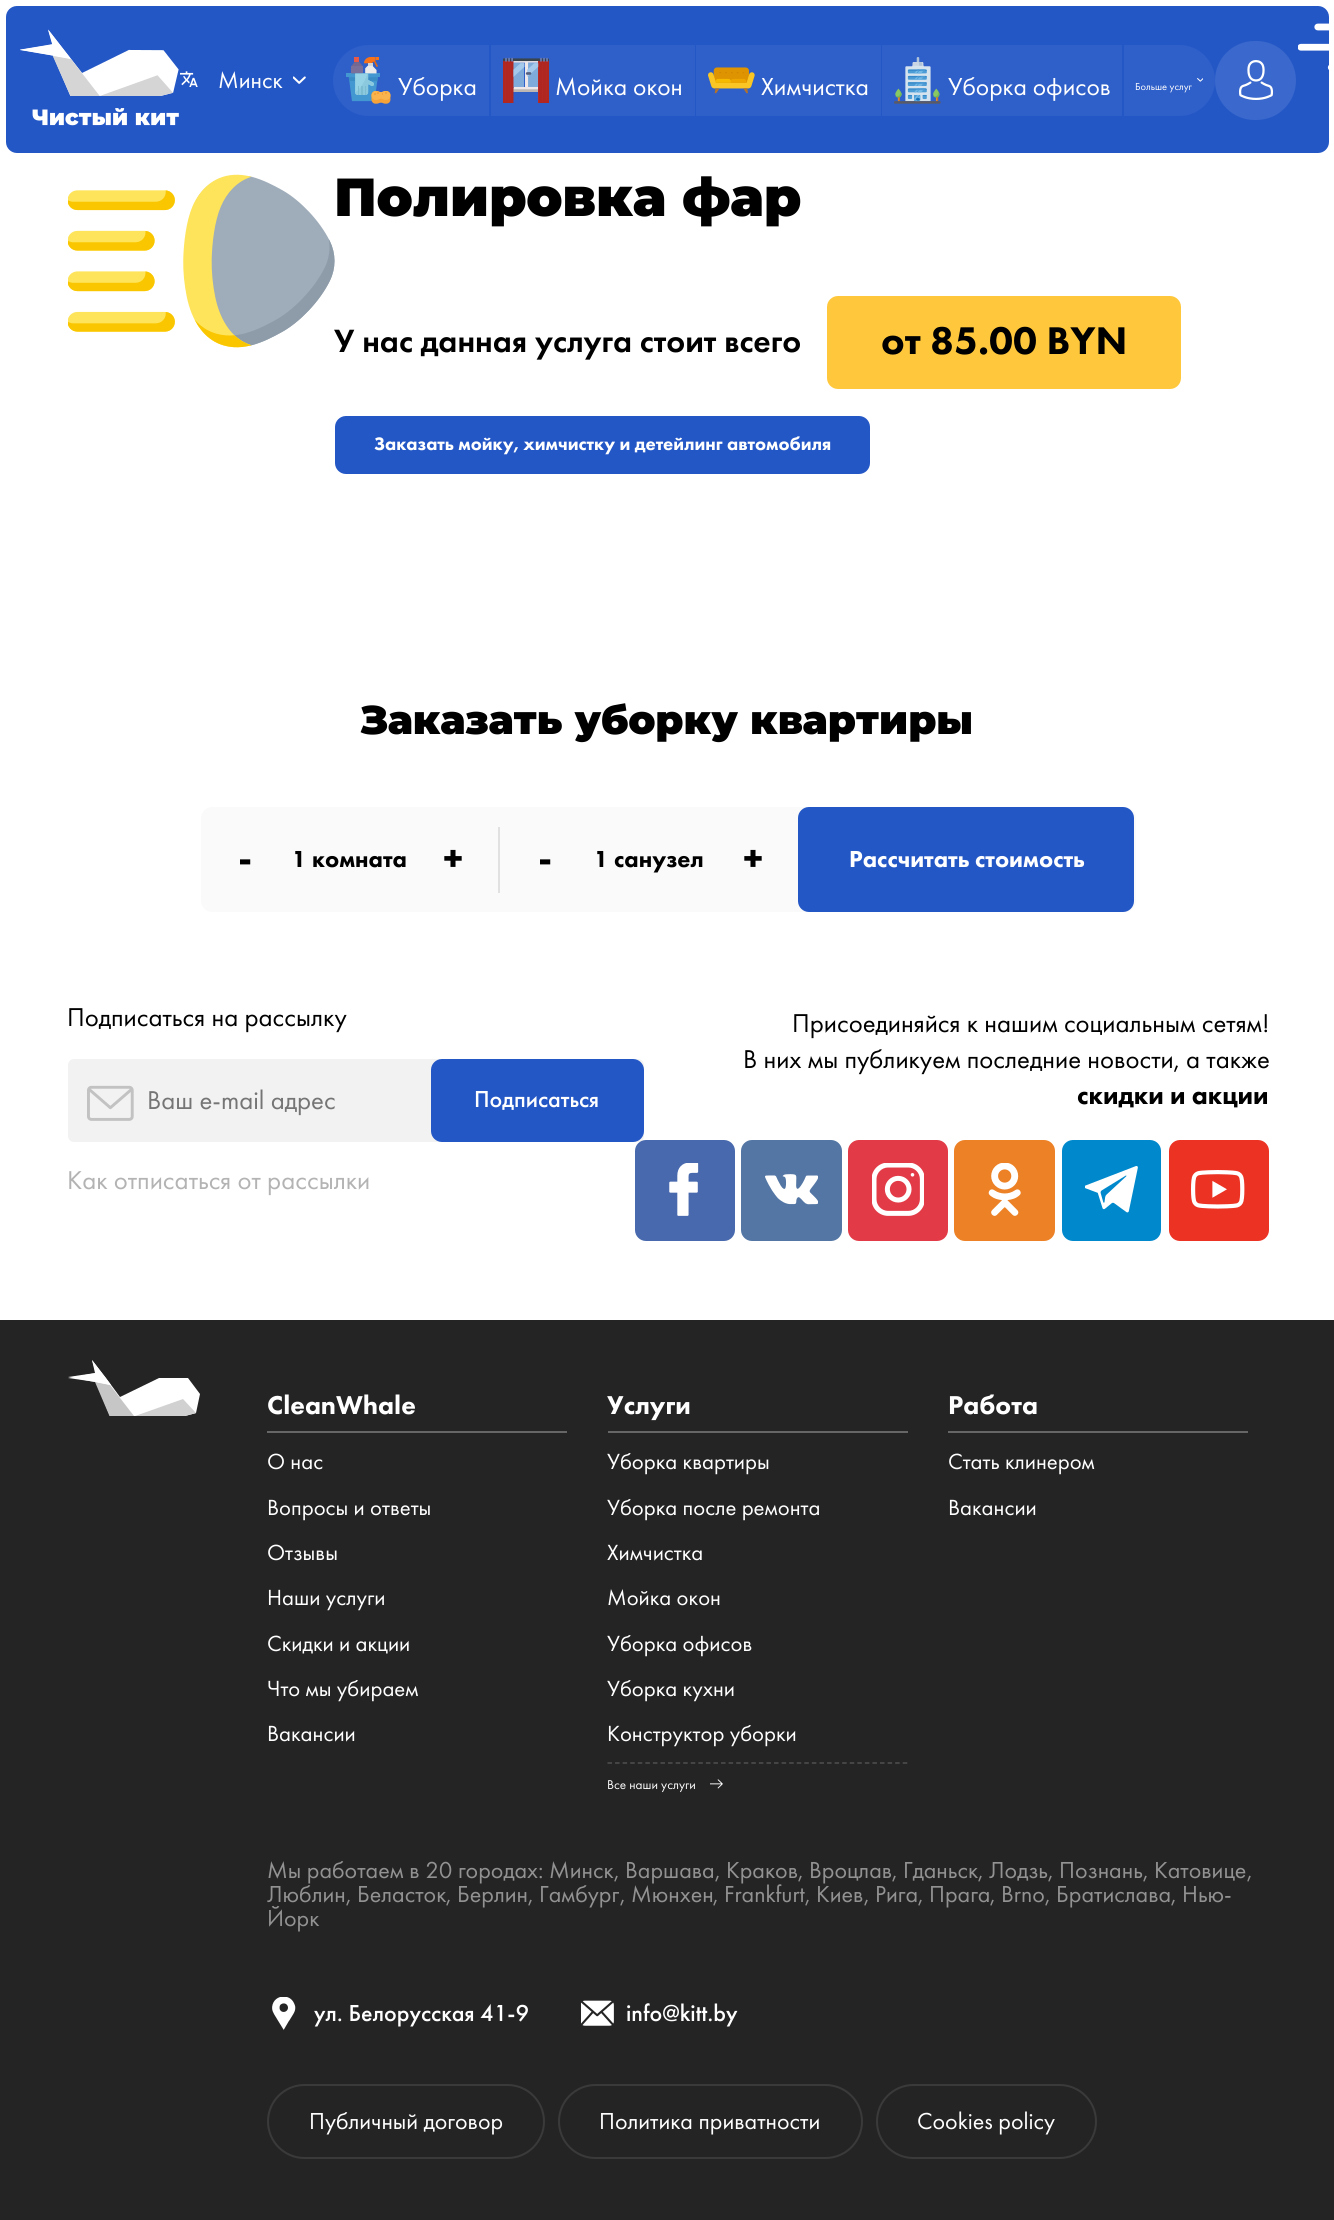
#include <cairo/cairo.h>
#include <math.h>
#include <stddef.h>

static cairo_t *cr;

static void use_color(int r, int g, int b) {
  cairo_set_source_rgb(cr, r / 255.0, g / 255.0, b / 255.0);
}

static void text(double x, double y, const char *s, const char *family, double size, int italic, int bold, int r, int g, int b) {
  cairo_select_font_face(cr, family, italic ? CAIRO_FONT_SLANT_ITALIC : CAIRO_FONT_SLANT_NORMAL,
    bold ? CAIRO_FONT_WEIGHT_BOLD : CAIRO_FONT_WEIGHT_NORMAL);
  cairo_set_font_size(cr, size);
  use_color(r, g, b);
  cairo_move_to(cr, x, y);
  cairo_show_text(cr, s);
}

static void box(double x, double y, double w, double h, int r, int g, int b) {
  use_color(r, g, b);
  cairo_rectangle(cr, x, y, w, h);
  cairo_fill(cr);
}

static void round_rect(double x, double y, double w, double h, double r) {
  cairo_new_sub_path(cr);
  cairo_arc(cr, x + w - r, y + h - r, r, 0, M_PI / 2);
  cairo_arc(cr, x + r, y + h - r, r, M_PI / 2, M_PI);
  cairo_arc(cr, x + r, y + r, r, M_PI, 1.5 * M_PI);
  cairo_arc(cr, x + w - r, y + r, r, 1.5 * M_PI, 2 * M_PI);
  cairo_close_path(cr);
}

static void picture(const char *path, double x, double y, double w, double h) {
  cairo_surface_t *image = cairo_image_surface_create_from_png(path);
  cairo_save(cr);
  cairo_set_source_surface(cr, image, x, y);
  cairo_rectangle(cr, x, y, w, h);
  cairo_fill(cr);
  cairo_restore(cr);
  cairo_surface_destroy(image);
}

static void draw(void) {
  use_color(255, 255, 255);
  cairo_paint(cr);
  use_color(36, 87, 198);
  round_rect(6, 6, 1323, 147, 11);
  cairo_fill(cr);
  picture("img_01.png", 20, 29, 159, 97);
  picture("img_02.png", 180, 71, 18, 16);
  picture("img_03.png", 293, 76, 13, 8);
  use_color(47, 95, 201);
  cairo_new_path(cr);
  cairo_move_to(cr, 368.5, 45);
  cairo_line_to(cr, 489, 45);
  cairo_line_to(cr, 489, 116);
  cairo_line_to(cr, 368.5, 116);
  cairo_curve_to(cr, 349, 116, 333, 100, 333, 80.5);
  cairo_curve_to(cr, 333, 61, 349, 45, 368.5, 45);
  cairo_close_path(cr);
  cairo_fill(cr);
  picture("img_04.png", 346, 57, 45, 47);
  box(491, 45, 204, 71, 47, 95, 201);
  picture("img_05.png", 503, 57, 46, 46);
  box(696, 45, 185, 71, 47, 95, 201);
  picture("img_06.png", 708, 67, 47, 27);
  box(882, 45, 240, 71, 47, 95, 201);
  picture("img_07.png", 894, 57, 47, 47);
  cairo_new_path(cr);
  cairo_move_to(cr, 1124, 45);
  cairo_line_to(cr, 1179.5, 45);
  cairo_curve_to(cr, 1199, 45, 1215, 61, 1215, 80.5);
  cairo_curve_to(cr, 1215, 100, 1199, 116, 1179.5, 116);
  cairo_line_to(cr, 1124, 116);
  cairo_close_path(cr);
  cairo_fill(cr);
  picture("img_08.png", 1197, 78, 6, 4);
  use_color(58, 104, 204);
  round_rect(1215, 41, 81, 79, 39.5);
  cairo_fill(cr);
  picture("img_09.png", 1239, 60, 35, 40);
  picture("img_10.png", 1298, 23, 31, 47);
  picture("img_11.png", 68, 174, 267, 174);
  use_color(255, 199, 59);
  round_rect(827, 296, 354, 93, 11);
  cairo_fill(cr);
  use_color(36, 87, 198);
  round_rect(335, 416, 535, 58, 11);
  cairo_fill(cr);
  use_color(250, 250, 250);
  round_rect(201, 807, 935, 105, 11);
  cairo_fill(cr);
  box(498, 827, 2, 66, 225, 225, 225);
  use_color(36, 87, 198);
  round_rect(798, 807, 336, 105, 11);
  cairo_fill(cr);
  use_color(242, 242, 242);
  round_rect(68, 1059, 576, 83, 6);
  cairo_fill(cr);
  picture("img_12.png", 87, 1085, 47, 36);
  use_color(36, 87, 198);
  round_rect(431, 1059, 213, 83, 11);
  cairo_fill(cr);
  use_color(72, 105, 173);
  round_rect(635, 1140, 100, 101, 11);
  cairo_fill(cr);
  picture("img_13.png", 669, 1163, 30, 53);
  use_color(83, 118, 164);
  round_rect(741, 1140, 101, 101, 11);
  cairo_fill(cr);
  picture("img_14.png", 765, 1174, 53, 31);
  use_color(226, 59, 71);
  round_rect(848, 1140, 100, 101, 11);
  cairo_fill(cr);
  picture("img_15.png", 872, 1163, 52, 53);
  use_color(236, 129, 37);
  round_rect(954, 1140, 101, 101, 11);
  cairo_fill(cr);
  picture("img_16.png", 988, 1163, 33, 53);
  use_color(0, 136, 204);
  round_rect(1062, 1140, 99, 101, 11);
  cairo_fill(cr);
  picture("img_17.png", 1085, 1166, 53, 47);
  use_color(235, 50, 35);
  round_rect(1169, 1140, 100, 101, 11);
  cairo_fill(cr);
  picture("img_18.png", 1191, 1170, 54, 39);
  box(0, 1320, 1334, 900, 36, 36, 36);
  use_color(255, 255, 255);
  cairo_set_fill_rule(cr, CAIRO_FILL_RULE_EVEN_ODD);
  cairo_new_path(cr);
  cairo_move_to(cr, 92, 1360);
  cairo_line_to(cr, 96, 1373);
  cairo_line_to(cr, 68, 1378);
  cairo_line_to(cr, 96, 1382);
  cairo_line_to(cr, 110, 1416);
  cairo_line_to(cr, 185, 1416);
  cairo_line_to(cr, 196, 1413);
  cairo_line_to(cr, 200, 1394);
  cairo_line_to(cr, 188, 1378);
  cairo_line_to(cr, 159, 1378);
  cairo_line_to(cr, 120, 1397);
  cairo_line_to(cr, 106, 1378);
  cairo_close_path(cr);
  cairo_fill(cr);
  use_color(198, 198, 198);
  cairo_new_path(cr);
  cairo_move_to(cr, 109.5, 1416);
  cairo_line_to(cr, 134, 1416);
  cairo_line_to(cr, 110, 1385);
  cairo_line_to(cr, 95, 1382);
  cairo_close_path(cr);
  cairo_fill(cr);
  use_color(255, 255, 255);
  cairo_new_path(cr);
  cairo_move_to(cr, 92, 1360);
  cairo_line_to(cr, 111, 1385);
  cairo_line_to(cr, 68, 1377);
  cairo_line_to(cr, 95, 1373);
  cairo_close_path(cr);
  cairo_fill(cr);
  use_color(209, 209, 209);
  cairo_new_path(cr);
  cairo_move_to(cr, 135, 1416);
  cairo_line_to(cr, 185, 1416);
  cairo_line_to(cr, 196, 1413);
  cairo_line_to(cr, 183, 1399);
  cairo_close_path(cr);
  cairo_fill(cr);
  box(267, 1431, 300, 2, 102, 102, 102);
  box(608, 1431, 300, 2, 102, 102, 102);
  cairo_new_path(cr);
  cairo_move_to(cr, 607.5, 1763);
  cairo_line_to(cr, 907.5, 1763);
  use_color(80, 80, 80);
  cairo_set_line_width(cr, 1.5);
  cairo_set_dash(cr, (double[]){4.5, 3.07}, 2, 0);
  cairo_stroke(cr);
  picture("img_19.png", 710, 1779, 13, 10);
  box(948, 1431, 300, 2, 102, 102, 102);
  picture("img_20.png", 272, 1997, 24, 33);
  picture("img_21.png", 581, 2000, 33, 26);
  round_rect(268, 2085, 276, 73, 36.5);
  use_color(58, 58, 58);
  cairo_set_line_width(cr, 2);
  cairo_set_dash(cr, NULL, 0, 0);
  cairo_stroke(cr);
  round_rect(559, 2085, 303, 73, 36.5);
  cairo_stroke(cr);
  round_rect(877, 2085, 219, 73, 36.5);
  cairo_stroke(cr);
  text(218, 88, "Минск", "Futura PT", 24, 0, 0, 255, 255, 255);
  text(398, 95, "Уборка", "Futura PT", 25.5, 0, 0, 255, 255, 255);
  text(555, 95, "Мойка окон", "Futura PT", 25.5, 0, 0, 255, 255, 255);
  text(761, 95, "Химчистка", "Futura PT", 25.5, 0, 0, 255, 255, 255);
  text(948, 95, "Уборка офисов", "Futura PT", 25.5, 0, 0, 255, 255, 255);
  text(1135, 90, "Больше услуг", "Futura PT", 10.5, 0, 0, 255, 255, 255);
  text(334, 216, "Полировка фар", "Montserrat Thin", 53.5, 0, 0, 0, 0, 0);
  text(334, 352, "У нас данная услуга стоит всего", "Futura PT Medium", 33.4, 0, 0, 0, 0, 0);
  text(881, 354, "от 85.00 BYN", "Futura PT Black", 40, 0, 0, 0, 0, 0);
  text(374, 450, "Заказать мойку, химчистку и детейлинг автомобиля", "Futura PT Black", 18.7, 0, 0, 255, 255, 255);
  text(361, 734, "Заказать уборку квартиры", "Montserrat Thin", 40, 0, 0, 0, 0, 0);
  text(238, 872, "-", "Futura PT Black", 40, 0, 0, 0, 0, 0);
  text(292, 867, "1 комната", "Futura PT Black", 24, 0, 0, 0, 0, 0);
  text(443, 872, "+", "Futura PT Black", 40, 0, 0, 0, 0, 0);
  text(538, 872, "-", "Futura PT Black", 40, 0, 0, 0, 0, 0);
  text(594, 867, "1 санузел", "Futura PT Black", 24, 0, 0, 0, 0, 0);
  text(743, 872, "+", "Futura PT Black", 40, 0, 0, 0, 0, 0);
  text(849, 867, "Рассчитать стоимость", "Futura PT Black", 24, 0, 0, 255, 255, 255);
  text(67, 1026, "Подписаться на рассылку", "Futura PT", 26.75, 0, 0, 0, 0, 0);
  text(147, 1109, "Ваш e-mail адрес", "Futura PT", 26.75, 0, 0, 117, 117, 117);
  text(474, 1107, "Подписаться", "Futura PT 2 Medium", 24, 0, 0, 255, 255, 255);
  text(67, 1189, "Как отписаться от рассылки", "Futura PT", 26.75, 0, 0, 179, 179, 179);
  text(792, 1032, "Присоединяйся к нашим социальным сетям!", "Futura PT", 26.75, 0, 0, 0, 0, 0);
  text(743, 1068, "В них мы публикуем последние новости, а также", "Futura PT", 26.75, 0, 0, 0, 0, 0);
  text(1077, 1104, "скидки и акции", "Futura PT Black", 26.75, 0, 0, 0, 0, 0);
  text(267, 1414, "CleanWhale", "Futura PT Black", 26.75, 0, 0, 255, 255, 255);
  text(267, 1469, "О нас", "Futura PT", 22.75, 0, 0, 255, 255, 255);
  text(267, 1515, "Вопросы и ответы", "Futura PT", 22.75, 0, 0, 255, 255, 255);
  text(267, 1560, "Отзывы", "Futura PT", 22.75, 0, 0, 255, 255, 255);
  text(267, 1605, "Наши услуги", "Futura PT", 22.75, 0, 0, 255, 255, 255);
  text(267, 1651, "Cкидки и акции", "Futura PT", 22.75, 0, 0, 255, 255, 255);
  text(267, 1696, "Что мы убираем", "Futura PT", 22.75, 0, 0, 255, 255, 255);
  text(267, 1741, "Вакансии", "Futura PT", 22.75, 0, 0, 255, 255, 255);
  text(607, 1414, "Услуги", "Futura PT Black", 26.75, 0, 0, 255, 255, 255);
  text(607, 1469, "Уборка квартиры", "Futura PT", 22.75, 0, 0, 255, 255, 255);
  text(607, 1515, "Уборка после ремонта", "Futura PT", 22.75, 0, 0, 255, 255, 255);
  text(607, 1560, "Химчистка", "Futura PT", 22.75, 0, 0, 255, 255, 255);
  text(607, 1605, "Мойка окон", "Futura PT", 22.75, 0, 0, 255, 255, 255);
  text(607, 1651, "Уборка офисов", "Futura PT", 22.75, 0, 0, 255, 255, 255);
  text(607, 1696, "Уборка кухни", "Futura PT", 22.75, 0, 0, 255, 255, 255);
  text(607, 1741, "Конструктор уборки", "Futura PT", 22.75, 0, 0, 255, 255, 255);
  text(607, 1789, "Все наши услуги", "Futura PT", 13.25, 0, 0, 255, 255, 255);
  text(948, 1414, "Работа", "Futura PT Black", 26.75, 0, 0, 255, 255, 255);
  text(948, 1469, "Стать клинером", "Futura PT", 22.75, 0, 0, 255, 255, 255);
  text(948, 1515, "Вакансии", "Futura PT", 22.75, 0, 0, 255, 255, 255);
  text(267, 1878, "Мы работаем в 20 городах: Минск", "Futura PT", 24, 0, 0, 146, 146, 146);
  text(614, 1878, ", Варшава", "Futura PT", 24, 0, 0, 146, 146, 146);
  text(715, 1878, ", Краков", "Futura PT", 24, 0, 0, 146, 146, 146);
  text(798, 1878, ", Вроцлав", "Futura PT", 24, 0, 0, 146, 146, 146);
  text(892, 1878, ",", "Futura PT", 24, 0, 0, 146, 146, 146);
  text(978, 1878, ", Лодзь", "Futura PT", 24, 0, 0, 146, 146, 146);
  text(903, 1878, "Гданьск", "Futura PT", 24, 0, 0, 146, 146, 146);
  text(1048, 1878, ", Познань", "Futura PT", 24, 0, 0, 146, 146, 146);
  text(1143, 1878, ", Катовице", "Futura PT", 24, 0, 0, 146, 146, 146);
  text(1247, 1878, ",", "Futura PT", 24, 0, 0, 146, 146, 146);
  text(267, 1902, "Люблин", "Futura PT", 24, 0, 0, 146, 146, 146);
  text(346, 1902, ",", "Futura PT", 24, 0, 0, 146, 146, 146);
  text(446, 1902, ", Берлин", "Futura PT", 24, 0, 0, 146, 146, 146);
  text(357, 1902, "Беласток", "Futura PT", 24, 0, 0, 146, 146, 146);
  text(528, 1902, ",", "Futura PT", 24, 0, 0, 146, 146, 146);
  text(620, 1902, ", Мюнхен", "Futura PT", 24, 0, 0, 146, 146, 146);
  text(539, 1902, "Гамбург", "Futura PT", 24, 0, 0, 146, 146, 146);
  text(713, 1902, ",", "Futura PT", 24, 0, 0, 146, 146, 146);
  text(805, 1902, ", Киев", "Futura PT", 24, 0, 0, 146, 146, 146);
  text(724, 1902, "Frankfurt", "Futura PT", 24, 0, 0, 146, 146, 146);
  text(864, 1902, ", Рига", "Futura PT", 24, 0, 0, 146, 146, 146);
  text(918, 1902, ", Прага", "Futura PT", 24, 0, 0, 146, 146, 146);
  text(990, 1902, ", Brno", "Futura PT", 24, 0, 0, 146, 146, 146);
  text(1045, 1902, ", Братислава", "Futura PT", 24, 0, 0, 146, 146, 146);
  text(1171, 1902, ", Нью-", "Futura PT", 24, 0, 0, 146, 146, 146);
  text(267, 1926, "Йорк", "Futura PT", 24, 0, 0, 146, 146, 146);
  text(314, 2021, "ул. Белорусская 41-9", "Futura PT 2 Medium", 24, 0, 0, 255, 255, 255);
  text(626, 2021, "info@kitt.by", "Futura PT 2 Medium", 24, 0, 0, 255, 255, 255);
  text(309, 2129, "Публичный договор", "Futura PT", 24, 0, 0, 255, 255, 255);
  text(599, 2129, "Политика приватности", "Futura PT", 24, 0, 0, 255, 255, 255);
  text(917, 2129, "Cookies policy", "Futura PT", 24, 0, 0, 255, 255, 255);
}

int main(void) {
  cairo_surface_t *surface = cairo_image_surface_create(CAIRO_FORMAT_RGB24, 1334, 2220);
  cr = cairo_create(surface);
  cairo_font_options_t *options = cairo_font_options_create();
  cairo_font_options_set_hint_metrics(options, CAIRO_HINT_METRICS_OFF);
  cairo_font_options_set_hint_style(options, CAIRO_HINT_STYLE_NONE);
  cairo_set_font_options(cr, options);
  cairo_set_miter_limit(cr, 4);
  draw();
  cairo_surface_write_to_png(surface, "out.png");
  cairo_font_options_destroy(options);
  cairo_destroy(cr);
  cairo_surface_destroy(surface);
  return 0;
}
